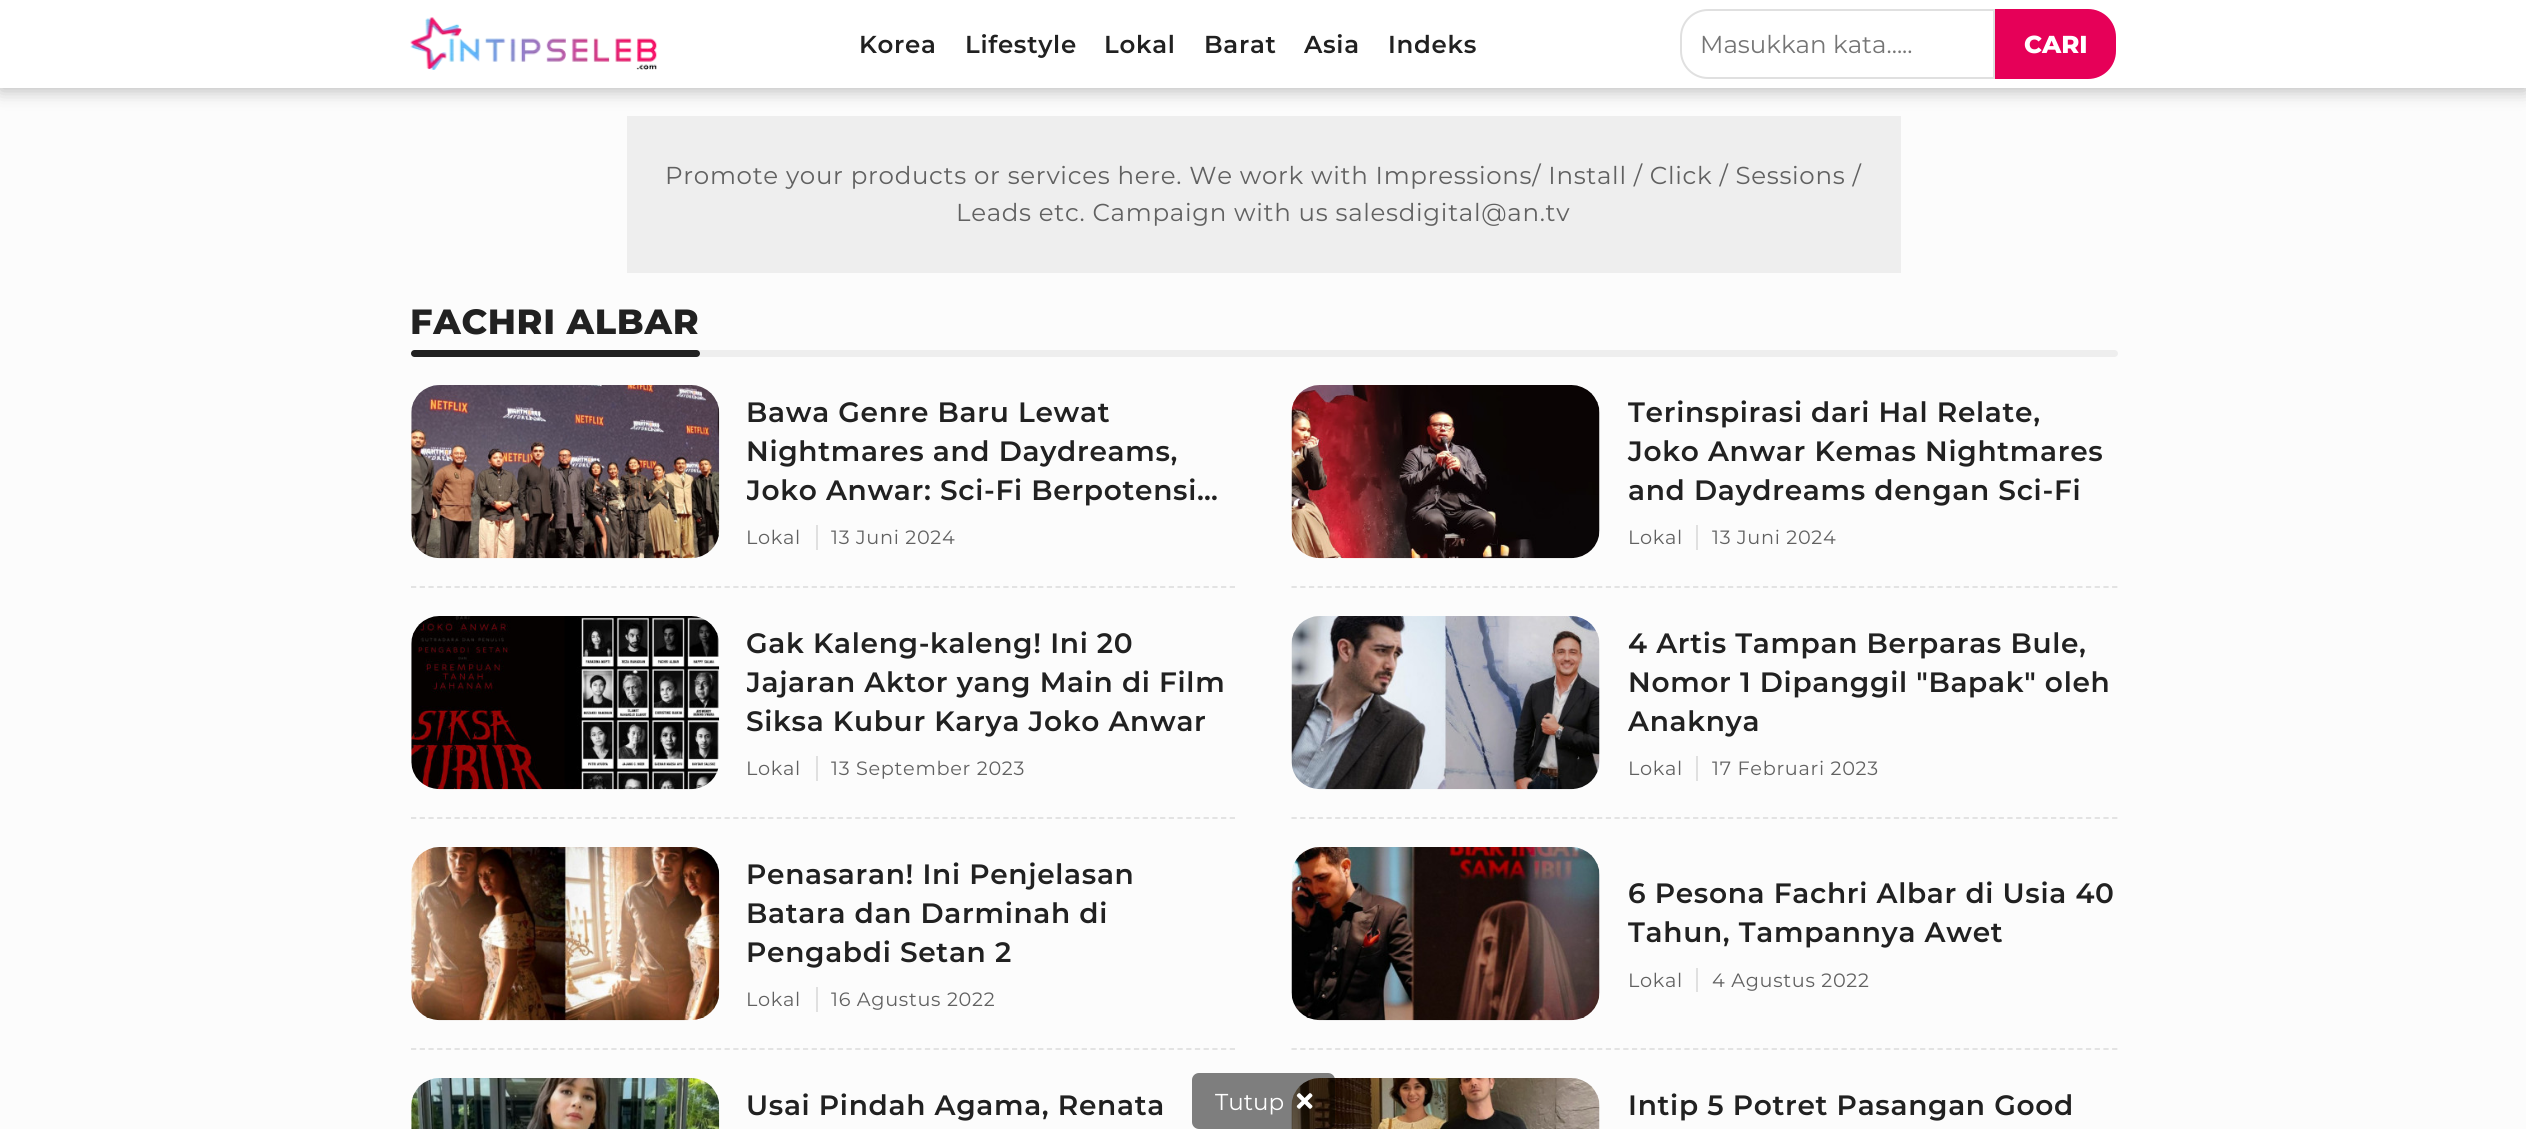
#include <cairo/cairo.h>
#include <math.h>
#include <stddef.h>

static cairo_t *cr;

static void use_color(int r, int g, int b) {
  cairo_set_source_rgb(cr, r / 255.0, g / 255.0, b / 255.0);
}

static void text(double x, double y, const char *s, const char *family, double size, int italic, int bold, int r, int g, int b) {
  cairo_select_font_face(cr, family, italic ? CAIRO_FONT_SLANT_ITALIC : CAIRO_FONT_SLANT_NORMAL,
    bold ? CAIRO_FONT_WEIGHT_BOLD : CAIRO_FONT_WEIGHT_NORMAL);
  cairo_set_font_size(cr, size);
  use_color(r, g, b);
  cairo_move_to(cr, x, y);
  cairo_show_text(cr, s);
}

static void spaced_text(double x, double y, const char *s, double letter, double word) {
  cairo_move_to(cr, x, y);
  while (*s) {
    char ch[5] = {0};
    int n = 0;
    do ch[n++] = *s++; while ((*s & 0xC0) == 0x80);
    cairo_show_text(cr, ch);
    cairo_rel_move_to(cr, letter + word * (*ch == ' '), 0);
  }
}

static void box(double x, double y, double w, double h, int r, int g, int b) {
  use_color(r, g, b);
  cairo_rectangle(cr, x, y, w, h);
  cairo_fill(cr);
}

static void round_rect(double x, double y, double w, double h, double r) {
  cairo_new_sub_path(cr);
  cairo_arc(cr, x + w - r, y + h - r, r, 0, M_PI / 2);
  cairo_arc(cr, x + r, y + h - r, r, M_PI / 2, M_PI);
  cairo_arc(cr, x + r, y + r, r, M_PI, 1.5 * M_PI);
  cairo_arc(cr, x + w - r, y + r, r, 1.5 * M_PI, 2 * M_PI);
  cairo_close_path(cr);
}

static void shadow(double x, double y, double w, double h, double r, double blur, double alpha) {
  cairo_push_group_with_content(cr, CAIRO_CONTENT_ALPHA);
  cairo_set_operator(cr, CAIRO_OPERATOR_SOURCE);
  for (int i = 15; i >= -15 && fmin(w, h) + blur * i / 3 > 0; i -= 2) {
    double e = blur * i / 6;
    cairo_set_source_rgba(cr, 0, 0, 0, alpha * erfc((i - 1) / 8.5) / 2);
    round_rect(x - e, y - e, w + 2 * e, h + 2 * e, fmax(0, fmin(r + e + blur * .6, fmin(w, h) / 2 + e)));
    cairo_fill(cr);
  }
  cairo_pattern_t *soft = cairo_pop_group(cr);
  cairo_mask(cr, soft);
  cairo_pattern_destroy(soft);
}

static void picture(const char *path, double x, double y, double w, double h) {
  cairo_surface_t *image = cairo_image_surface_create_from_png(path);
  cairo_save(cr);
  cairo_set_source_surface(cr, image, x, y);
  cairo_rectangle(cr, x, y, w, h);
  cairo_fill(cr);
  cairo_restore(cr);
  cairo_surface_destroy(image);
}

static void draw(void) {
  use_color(252, 252, 252);
  cairo_paint(cr);
  box(627, 116, 1274, 157, 238, 238, 238);
  use_color(0, 0, 0);
  shadow(0, 4, 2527, 87, 0, 9, 0.25);
  box(0, 0, 2526, 88, 255, 255, 255);
  picture("img_01.png", 410, 17, 247, 53);
  cairo_new_path(cr);
  cairo_move_to(cr, 1708, 10);
  cairo_line_to(cr, 1994, 10);
  cairo_line_to(cr, 1994, 78);
  cairo_line_to(cr, 1708, 78);
  cairo_curve_to(cr, 1693, 78, 1681, 66, 1681, 51);
  cairo_line_to(cr, 1681, 37);
  cairo_curve_to(cr, 1681, 22, 1693, 10, 1708, 10);
  cairo_close_path(cr);
  use_color(224, 224, 224);
  cairo_stroke(cr);
  use_color(230, 0, 88);
  cairo_new_path(cr);
  cairo_move_to(cr, 1995, 9);
  cairo_line_to(cr, 2088, 9);
  cairo_curve_to(cr, 2103.5, 9, 2116, 21.5, 2116, 37);
  cairo_line_to(cr, 2116, 51);
  cairo_curve_to(cr, 2116, 66.5, 2103.5, 79, 2088, 79);
  cairo_line_to(cr, 1995, 79);
  cairo_close_path(cr);
  cairo_fill(cr);
  use_color(238, 238, 238);
  round_rect(411, 350, 1707, 7, 3.5);
  cairo_fill(cr);
  use_color(33, 33, 33);
  round_rect(411, 350, 289, 7, 3.5);
  cairo_fill(cr);
  cairo_new_path(cr);
  cairo_move_to(cr, 411, 587);
  cairo_line_to(cr, 1235.5, 587);
  use_color(224, 224, 224);
  cairo_set_line_width(cr, 1.8);
  cairo_set_dash(cr, (double[]){5.25, 3.46}, 2, 0);
  cairo_stroke(cr);
  picture("img_02.png", 411, 385, 309, 174);
  box(816, 525, 2, 25, 224, 224, 224);
  cairo_new_path(cr);
  cairo_move_to(cr, 1291.5, 587);
  cairo_line_to(cr, 2117.5, 587);
  cairo_set_dash(cr, (double[]){5.25, 3.48}, 2, 0);
  cairo_stroke(cr);
  picture("img_03.png", 1291, 385, 309, 174);
  box(1696, 525, 2, 25, 224, 224, 224);
  cairo_new_path(cr);
  cairo_move_to(cr, 411, 818);
  cairo_line_to(cr, 1235.5, 818);
  cairo_set_dash(cr, (double[]){5.25, 3.46}, 2, 0);
  cairo_stroke(cr);
  picture("img_04.png", 411, 616, 309, 174);
  box(816, 756, 2, 25, 224, 224, 224);
  cairo_new_path(cr);
  cairo_move_to(cr, 1291.5, 818);
  cairo_line_to(cr, 2117.5, 818);
  cairo_set_dash(cr, (double[]){5.25, 3.48}, 2, 0);
  cairo_stroke(cr);
  picture("img_05.png", 1291, 616, 309, 174);
  box(1696, 756, 2, 25, 224, 224, 224);
  cairo_new_path(cr);
  cairo_move_to(cr, 411, 1049);
  cairo_line_to(cr, 1235.5, 1049);
  cairo_set_dash(cr, (double[]){5.25, 3.46}, 2, 0);
  cairo_stroke(cr);
  picture("img_06.png", 411, 847, 309, 174);
  box(816, 987, 2, 25, 224, 224, 224);
  cairo_new_path(cr);
  cairo_move_to(cr, 1291.5, 1049);
  cairo_line_to(cr, 2117.5, 1049);
  cairo_set_dash(cr, (double[]){5.25, 3.48}, 2, 0);
  cairo_stroke(cr);
  picture("img_07.png", 1291, 847, 309, 174);
  box(1696, 968, 2, 24, 224, 224, 224);
  picture("img_08.png", 411, 1078, 309, 51);
  picture("img_09.png", 1291, 1078, 309, 51);
  cairo_set_source_rgba(cr, 0, 0, 0, 0.5);
  round_rect(1192, 1073, 143, 56, 7);
  cairo_fill(cr);
  picture("img_10.png", 1296, 1093, 17, 16);
  cairo_select_font_face(cr, "Montserrat SemiBold", CAIRO_FONT_SLANT_NORMAL, CAIRO_FONT_WEIGHT_NORMAL);
  cairo_set_font_size(cr, 24.5);
  use_color(33, 33, 33);
  spaced_text(859, 53, "Korea", 0.7, 0);
  spaced_text(965, 53, "Lifestyle", 0.7, 0);
  spaced_text(1104, 53, "Lokal", 0.7, 0);
  spaced_text(1204, 53, "Barat", 0.7, 0);
  spaced_text(1304, 53, "Asia", 0.7, 0);
  spaced_text(1388, 53, "Indeks", 0.7, 0);
  text(1700, 53, "Masukkan kata.....", "Montserrat", 24.5, 0, 0, 117, 117, 117);
  text(2024, 53, "CARI", "Montserrat ExtraBold", 24.5, 0, 0, 255, 255, 255);
  cairo_select_font_face(cr, "Montserrat", CAIRO_FONT_SLANT_NORMAL, CAIRO_FONT_WEIGHT_NORMAL);
  use_color(97, 97, 97);
  spaced_text(665, 184, "Promote your products or services here. We work with Impressions/ Install / Click / Sessions /", 0.7, 0);
  spaced_text(956, 221, "Leads etc. Campaign with us salesdigital@an.tv", 0.7, 0);
  cairo_select_font_face(cr, "Montserrat ExtraBold", CAIRO_FONT_SLANT_NORMAL, CAIRO_FONT_WEIGHT_NORMAL);
  cairo_set_font_size(cr, 35);
  use_color(33, 33, 33);
  spaced_text(410, 334, "FACHRI ALBAR", 0.7, 0);
  cairo_select_font_face(cr, "Montserrat SemiBold", CAIRO_FONT_SLANT_NORMAL, CAIRO_FONT_WEIGHT_NORMAL);
  cairo_set_font_size(cr, 28);
  spaced_text(746, 422, "Bawa Genre Baru Lewat", 0.7, 0);
  spaced_text(746, 461, "Nightmares and Daydreams,", 0.7, 0);
  cairo_save(cr);
  cairo_rectangle(cr, 747, 394, 489, 117);
  cairo_clip(cr);
  spaced_text(746, 500, "Joko Anwar: Sci-Fi Berpotensi…", 0.7, 0);
  cairo_restore(cr);
  cairo_select_font_face(cr, "Montserrat", CAIRO_FONT_SLANT_NORMAL, CAIRO_FONT_WEIGHT_NORMAL);
  cairo_set_font_size(cr, 19.25);
  use_color(97, 97, 97);
  spaced_text(746, 544, "Lokal", 0.7, 0);
  spaced_text(831, 544, "13 Juni 2024", 0.7, 0);
  cairo_save(cr);
  cairo_rectangle(cr, 1628, 394, 490, 117);
  cairo_clip(cr);
  cairo_select_font_face(cr, "Montserrat SemiBold", CAIRO_FONT_SLANT_NORMAL, CAIRO_FONT_WEIGHT_NORMAL);
  cairo_set_font_size(cr, 28);
  use_color(33, 33, 33);
  spaced_text(1628, 422, "Terinspirasi dari Hal Relate,", 0.7, 0);
  cairo_restore(cr);
  cairo_select_font_face(cr, "Montserrat SemiBold", CAIRO_FONT_SLANT_NORMAL, CAIRO_FONT_WEIGHT_NORMAL);
  cairo_set_font_size(cr, 28);
  use_color(33, 33, 33);
  spaced_text(1628, 461, "Joko Anwar Kemas Nightmares", 0.7, 0);
  spaced_text(1628, 500, "and Daydreams dengan Sci-Fi", 0.7, 0);
  cairo_select_font_face(cr, "Montserrat", CAIRO_FONT_SLANT_NORMAL, CAIRO_FONT_WEIGHT_NORMAL);
  cairo_set_font_size(cr, 19.25);
  use_color(97, 97, 97);
  spaced_text(1628, 544, "Lokal", 0.7, 0);
  spaced_text(1712, 544, "13 Juni 2024", 0.7, 0);
  cairo_select_font_face(cr, "Montserrat SemiBold", CAIRO_FONT_SLANT_NORMAL, CAIRO_FONT_WEIGHT_NORMAL);
  cairo_set_font_size(cr, 28);
  use_color(33, 33, 33);
  spaced_text(746, 653, "Gak Kaleng-kaleng! Ini 20", 0.7, 0);
  cairo_save(cr);
  cairo_rectangle(cr, 747, 625, 489, 117);
  cairo_clip(cr);
  spaced_text(746, 692, "Jajaran Aktor yang Main di Film", 0.7, 0);
  cairo_restore(cr);
  spaced_text(746, 731, "Siksa Kubur Karya Joko Anwar", 0.7, 0);
  cairo_select_font_face(cr, "Montserrat", CAIRO_FONT_SLANT_NORMAL, CAIRO_FONT_WEIGHT_NORMAL);
  cairo_set_font_size(cr, 19.25);
  use_color(97, 97, 97);
  spaced_text(746, 775, "Lokal", 0.7, 0);
  spaced_text(831, 775, "13 September 2023", 0.7, 0);
  cairo_select_font_face(cr, "Montserrat SemiBold", CAIRO_FONT_SLANT_NORMAL, CAIRO_FONT_WEIGHT_NORMAL);
  cairo_set_font_size(cr, 28);
  use_color(33, 33, 33);
  spaced_text(1628, 653, "4 Artis Tampan Berparas Bule,", 0.7, 0);
  spaced_text(1628, 692, "Nomor 1 Dipanggil \"Bapak\" oleh", 0.7, 0);
  spaced_text(1628, 731, "Anaknya", 0.7, 0);
  cairo_select_font_face(cr, "Montserrat", CAIRO_FONT_SLANT_NORMAL, CAIRO_FONT_WEIGHT_NORMAL);
  cairo_set_font_size(cr, 19.25);
  use_color(97, 97, 97);
  spaced_text(1628, 775, "Lokal", 0.7, 0);
  spaced_text(1712, 775, "17 Februari 2023", 0.7, 0);
  cairo_select_font_face(cr, "Montserrat SemiBold", CAIRO_FONT_SLANT_NORMAL, CAIRO_FONT_WEIGHT_NORMAL);
  cairo_set_font_size(cr, 28);
  use_color(33, 33, 33);
  spaced_text(746, 884, "Penasaran! Ini Penjelasan", 0.7, 0);
  spaced_text(746, 923, "Batara dan Darminah di", 0.7, 0);
  spaced_text(746, 962, "Pengabdi Setan 2", 0.7, 0);
  cairo_select_font_face(cr, "Montserrat", CAIRO_FONT_SLANT_NORMAL, CAIRO_FONT_WEIGHT_NORMAL);
  cairo_set_font_size(cr, 19.25);
  use_color(97, 97, 97);
  spaced_text(746, 1006, "Lokal", 0.7, 0);
  spaced_text(831, 1006, "16 Agustus 2022", 0.7, 0);
  cairo_select_font_face(cr, "Montserrat SemiBold", CAIRO_FONT_SLANT_NORMAL, CAIRO_FONT_WEIGHT_NORMAL);
  cairo_set_font_size(cr, 28);
  use_color(33, 33, 33);
  spaced_text(1628, 903, "6 Pesona Fachri Albar di Usia 40", 0.7, 0);
  cairo_save(cr);
  cairo_rectangle(cr, 1628, 875, 490, 79);
  cairo_clip(cr);
  spaced_text(1628, 942, "Tahun, Tampannya Awet", 0.7, 0);
  cairo_restore(cr);
  cairo_select_font_face(cr, "Montserrat", CAIRO_FONT_SLANT_NORMAL, CAIRO_FONT_WEIGHT_NORMAL);
  cairo_set_font_size(cr, 19.25);
  use_color(97, 97, 97);
  spaced_text(1628, 987, "Lokal", 0.7, 0);
  spaced_text(1712, 987, "4 Agustus 2022", 0.7, 0);
  cairo_select_font_face(cr, "Montserrat SemiBold", CAIRO_FONT_SLANT_NORMAL, CAIRO_FONT_WEIGHT_NORMAL);
  cairo_set_font_size(cr, 28);
  use_color(33, 33, 33);
  spaced_text(746, 1115, "Usai Pindah Agama, Renata", 0.7, 0);
  spaced_text(1628, 1115, "Intip 5 Potret Pasangan Good", 0.7, 0);
  text(1215, 1110, "Tutup", "Montserrat", 23, 0, 0, 255, 255, 255);
}

int main(void) {
  cairo_surface_t *surface = cairo_image_surface_create(CAIRO_FORMAT_RGB24, 2526, 1129);
  cr = cairo_create(surface);
  cairo_font_options_t *options = cairo_font_options_create();
  cairo_font_options_set_hint_metrics(options, CAIRO_HINT_METRICS_OFF);
  cairo_font_options_set_hint_style(options, CAIRO_HINT_STYLE_NONE);
  cairo_set_font_options(cr, options);
  cairo_set_miter_limit(cr, 4);
  draw();
  cairo_surface_write_to_png(surface, "out.png");
  cairo_font_options_destroy(options);
  cairo_destroy(cr);
  cairo_surface_destroy(surface);
  return 0;
}
